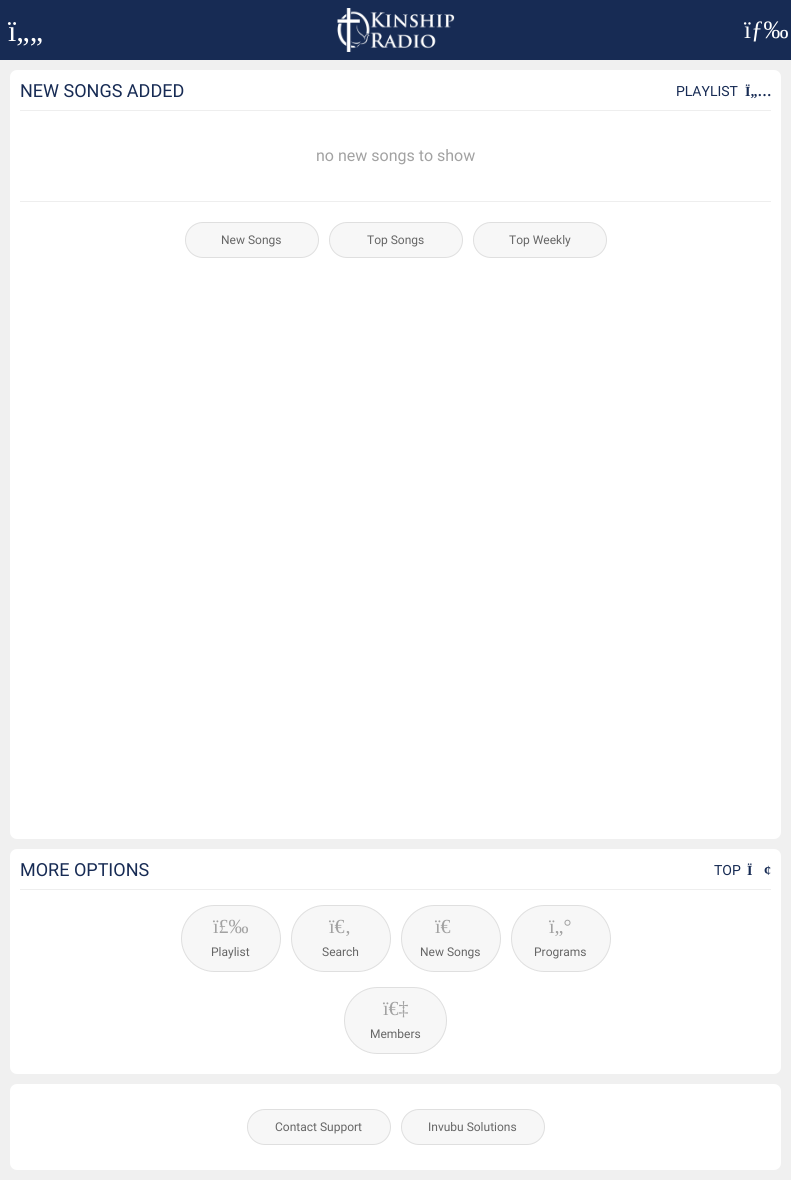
#include <cairo/cairo.h>
#include <math.h>
#include <stddef.h>

static cairo_t *cr;

static void use_color(int r, int g, int b) {
  cairo_set_source_rgb(cr, r / 255.0, g / 255.0, b / 255.0);
}

static void text(double x, double y, const char *s, const char *family, double size, int italic, int bold, int r, int g, int b) {
  cairo_select_font_face(cr, family, italic ? CAIRO_FONT_SLANT_ITALIC : CAIRO_FONT_SLANT_NORMAL,
    bold ? CAIRO_FONT_WEIGHT_BOLD : CAIRO_FONT_WEIGHT_NORMAL);
  cairo_set_font_size(cr, size);
  use_color(r, g, b);
  cairo_move_to(cr, x, y);
  cairo_show_text(cr, s);
}

static void box(double x, double y, double w, double h, int r, int g, int b) {
  use_color(r, g, b);
  cairo_rectangle(cr, x, y, w, h);
  cairo_fill(cr);
}

static void round_rect(double x, double y, double w, double h, double r) {
  cairo_new_sub_path(cr);
  cairo_arc(cr, x + w - r, y + h - r, r, 0, M_PI / 2);
  cairo_arc(cr, x + r, y + h - r, r, M_PI / 2, M_PI);
  cairo_arc(cr, x + r, y + r, r, M_PI, 1.5 * M_PI);
  cairo_arc(cr, x + w - r, y + r, r, 1.5 * M_PI, 2 * M_PI);
  cairo_close_path(cr);
}

static void picture(const char *path, double x, double y, double w, double h) {
  cairo_surface_t *image = cairo_image_surface_create_from_png(path);
  cairo_save(cr);
  cairo_set_source_surface(cr, image, x, y);
  cairo_rectangle(cr, x, y, w, h);
  cairo_fill(cr);
  cairo_restore(cr);
  cairo_surface_destroy(image);
}

static void draw(void) {
  use_color(240, 240, 240);
  cairo_paint(cr);
  box(0, 0, 791, 60, 23, 43, 84);
  picture("img_01.png", 337, 8, 118, 44);
  use_color(255, 255, 255);
  round_rect(10, 70, 771, 769, 7);
  cairo_fill(cr);
  box(20, 110, 751, 1, 238, 238, 238);
  box(20, 201, 751, 1, 238, 238, 238);
  use_color(247, 247, 247);
  round_rect(185, 222, 134, 36, 18);
  cairo_fill(cr);
  round_rect(185.5, 222.5, 133, 35, 17.5);
  cairo_set_source_rgba(cr, 0.341, 0.341, 0.341, 0.15);
  cairo_set_line_width(cr, 1);
  cairo_stroke(cr);
  use_color(247, 247, 247);
  round_rect(329, 222, 134, 36, 18);
  cairo_fill(cr);
  round_rect(329.5, 222.5, 133, 35, 17.5);
  cairo_set_source_rgba(cr, 0.341, 0.341, 0.341, 0.15);
  cairo_stroke(cr);
  use_color(247, 247, 247);
  round_rect(473, 222, 134, 36, 18);
  cairo_fill(cr);
  round_rect(473.5, 222.5, 133, 35, 17.5);
  cairo_set_source_rgba(cr, 0.341, 0.341, 0.341, 0.15);
  cairo_stroke(cr);
  use_color(255, 255, 255);
  round_rect(10, 849, 771, 225, 7);
  cairo_fill(cr);
  box(20, 889, 751, 1, 238, 238, 238);
  use_color(247, 247, 247);
  round_rect(181, 905, 100, 67, 33.5);
  cairo_fill(cr);
  round_rect(181.5, 905.5, 99, 66, 33);
  cairo_set_source_rgba(cr, 0.341, 0.341, 0.341, 0.15);
  cairo_stroke(cr);
  use_color(247, 247, 247);
  round_rect(291, 905, 100, 67, 33.5);
  cairo_fill(cr);
  round_rect(291.5, 905.5, 99, 66, 33);
  cairo_set_source_rgba(cr, 0.341, 0.341, 0.341, 0.15);
  cairo_stroke(cr);
  use_color(247, 247, 247);
  round_rect(401, 905, 100, 67, 33.5);
  cairo_fill(cr);
  round_rect(401.5, 905.5, 99, 66, 33);
  cairo_set_source_rgba(cr, 0.341, 0.341, 0.341, 0.15);
  cairo_stroke(cr);
  use_color(247, 247, 247);
  round_rect(511, 905, 100, 67, 33.5);
  cairo_fill(cr);
  round_rect(511.5, 905.5, 99, 66, 33);
  cairo_set_source_rgba(cr, 0.341, 0.341, 0.341, 0.15);
  cairo_stroke(cr);
  use_color(247, 247, 247);
  round_rect(344, 987, 103, 67, 33.5);
  cairo_fill(cr);
  round_rect(344.5, 987.5, 102, 66, 33);
  cairo_set_source_rgba(cr, 0.341, 0.341, 0.341, 0.15);
  cairo_stroke(cr);
  use_color(255, 255, 255);
  round_rect(10, 1084, 771, 86, 7);
  cairo_fill(cr);
  use_color(247, 247, 247);
  round_rect(247, 1109, 144, 36, 18);
  cairo_fill(cr);
  round_rect(247.5, 1109.5, 143, 35, 17.5);
  cairo_set_source_rgba(cr, 0.341, 0.341, 0.341, 0.15);
  cairo_stroke(cr);
  use_color(247, 247, 247);
  round_rect(401, 1109, 144, 36, 18);
  cairo_fill(cr);
  round_rect(401.5, 1109.5, 143, 35, 17.5);
  cairo_set_source_rgba(cr, 0.341, 0.341, 0.341, 0.15);
  cairo_stroke(cr);
  text(8, 41, "ï„„", "Liberation Serif", 30, 0, 0, 255, 255, 255);
  text(744, 38, "ïƒ‰", "Liberation Serif", 25, 0, 0, 255, 255, 255);
  text(20, 97, "NEW SONGS ADDED", "Roboto", 18, 0, 0, 23, 43, 84);
  text(676, 96, "PLAYLIST", "Roboto", 14, 0, 0, 23, 43, 84);
  text(745, 96, "Ï„…", "Liberation Serif", 14, 0, 1, 23, 43, 84);
  text(316, 161, "no new songs to show", "Roboto", 16, 0, 0, 162, 162, 162);
  text(221, 244, "New Songs", "Roboto", 12, 0, 0, 102, 102, 102);
  text(367, 244, "Top Songs", "Roboto", 12, 0, 0, 102, 102, 102);
  text(509, 244, "Top Weekly", "Roboto", 12, 0, 0, 102, 102, 102);
  text(20, 876, "MORE OPTIONS", "Roboto", 18, 0, 0, 23, 43, 84);
  text(714, 875, "TOP", "Roboto", 14, 0, 0, 23, 43, 84);
  text(747, 875, "Ï", "Liberation Serif", 14, 0, 1, 23, 43, 84);
  text(764, 875, "¢", "Liberation Serif", 14, 0, 1, 23, 43, 84);
  text(213, 933, "ï£‰", "Liberation Serif", 20, 0, 0, 162, 162, 162);
  text(211, 956, "Playlist", "Roboto", 12, 0, 0, 102, 102, 102);
  text(329, 933, "ï€‚", "Liberation Serif", 20, 0, 0, 162, 162, 162);
  text(322, 956, "Search", "Roboto", 12, 0, 0, 102, 102, 102);
  text(435, 933, "ï€", "Liberation Serif", 20, 0, 0, 162, 162, 162);
  text(420, 956, "New Songs", "Roboto", 12, 0, 0, 102, 102, 102);
  text(549, 933, "ï„°", "Liberation Serif", 20, 0, 0, 162, 162, 162);
  text(534, 956, "Programs", "Roboto", 12, 0, 0, 102, 102, 102);
  text(383, 1015, "ï€‡", "Liberation Serif", 20, 0, 0, 162, 162, 162);
  text(370, 1038, "Members", "Roboto", 12, 0, 0, 102, 102, 102);
  text(275, 1131, "Contact Support", "Roboto", 12, 0, 0, 102, 102, 102);
  text(428, 1131, "Invubu Solutions", "Roboto", 12, 0, 0, 102, 102, 102);
}

int main(void) {
  cairo_surface_t *surface = cairo_image_surface_create(CAIRO_FORMAT_RGB24, 791, 1180);
  cr = cairo_create(surface);
  cairo_font_options_t *options = cairo_font_options_create();
  cairo_font_options_set_hint_metrics(options, CAIRO_HINT_METRICS_OFF);
  cairo_font_options_set_hint_style(options, CAIRO_HINT_STYLE_NONE);
  cairo_set_font_options(cr, options);
  cairo_set_miter_limit(cr, 4);
  draw();
  cairo_surface_write_to_png(surface, "out.png");
  cairo_font_options_destroy(options);
  cairo_destroy(cr);
  cairo_surface_destroy(surface);
  return 0;
}
